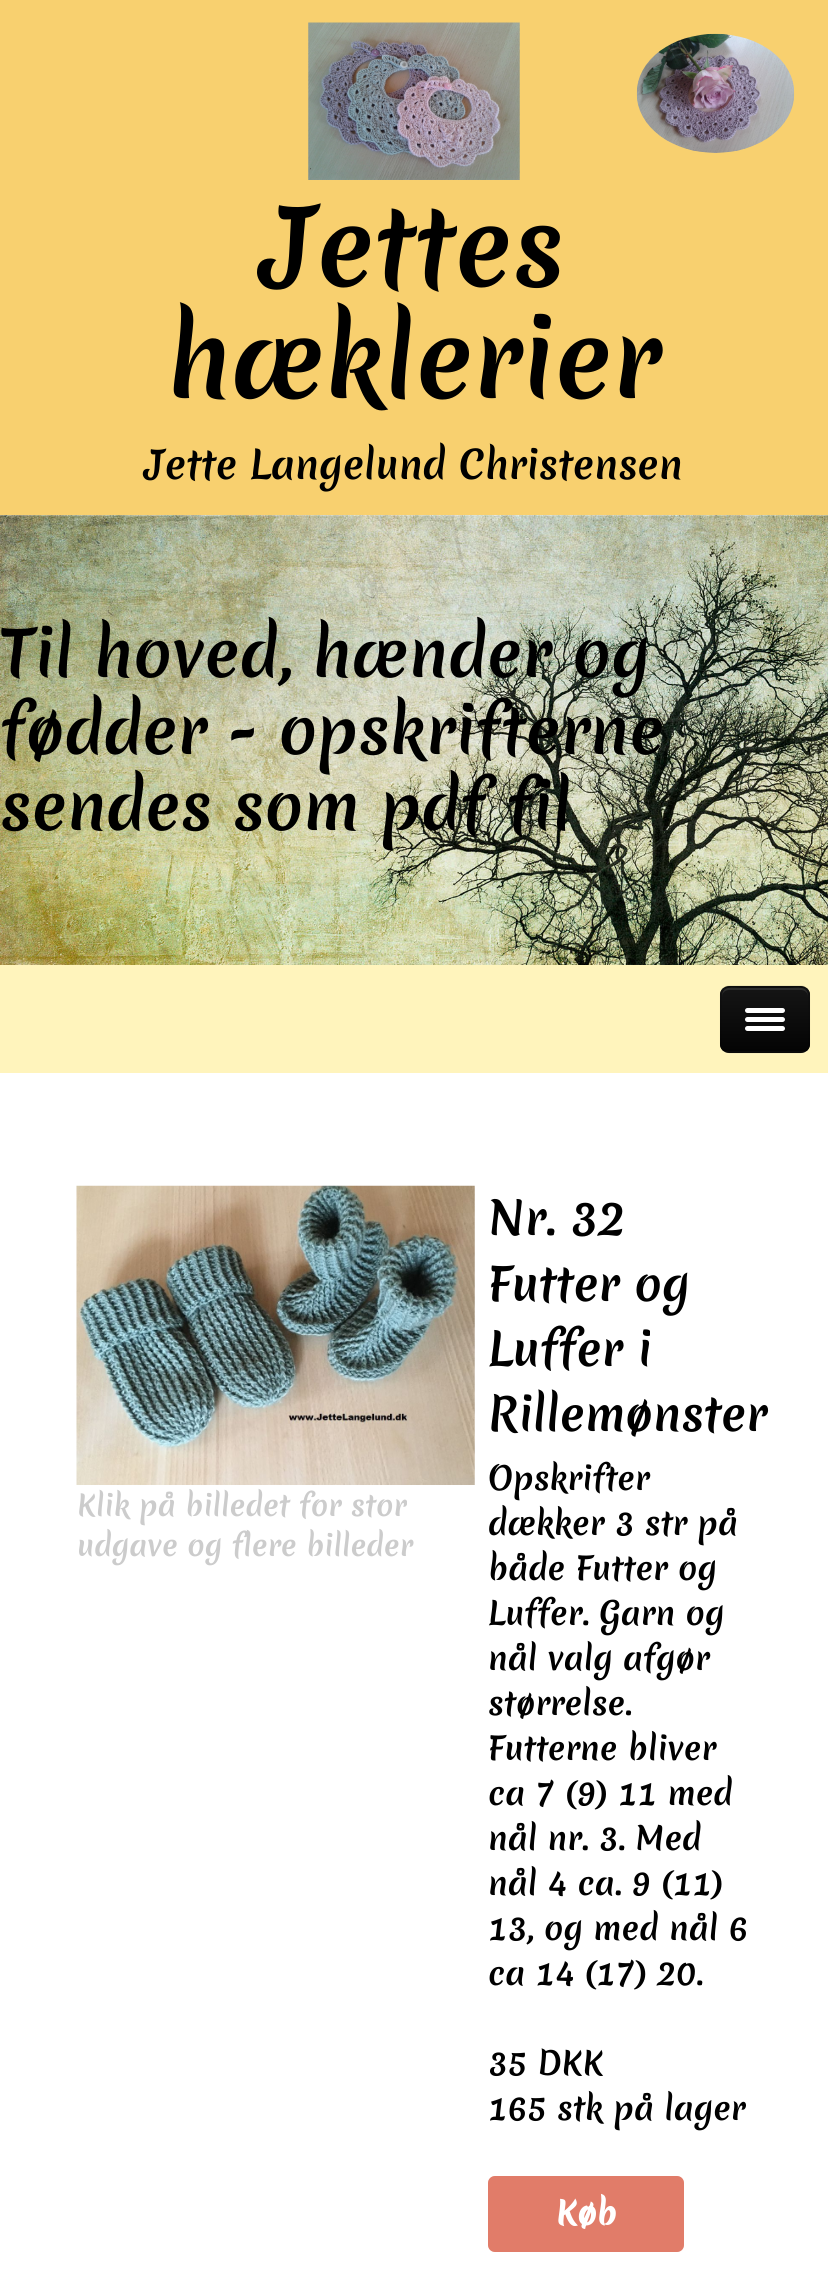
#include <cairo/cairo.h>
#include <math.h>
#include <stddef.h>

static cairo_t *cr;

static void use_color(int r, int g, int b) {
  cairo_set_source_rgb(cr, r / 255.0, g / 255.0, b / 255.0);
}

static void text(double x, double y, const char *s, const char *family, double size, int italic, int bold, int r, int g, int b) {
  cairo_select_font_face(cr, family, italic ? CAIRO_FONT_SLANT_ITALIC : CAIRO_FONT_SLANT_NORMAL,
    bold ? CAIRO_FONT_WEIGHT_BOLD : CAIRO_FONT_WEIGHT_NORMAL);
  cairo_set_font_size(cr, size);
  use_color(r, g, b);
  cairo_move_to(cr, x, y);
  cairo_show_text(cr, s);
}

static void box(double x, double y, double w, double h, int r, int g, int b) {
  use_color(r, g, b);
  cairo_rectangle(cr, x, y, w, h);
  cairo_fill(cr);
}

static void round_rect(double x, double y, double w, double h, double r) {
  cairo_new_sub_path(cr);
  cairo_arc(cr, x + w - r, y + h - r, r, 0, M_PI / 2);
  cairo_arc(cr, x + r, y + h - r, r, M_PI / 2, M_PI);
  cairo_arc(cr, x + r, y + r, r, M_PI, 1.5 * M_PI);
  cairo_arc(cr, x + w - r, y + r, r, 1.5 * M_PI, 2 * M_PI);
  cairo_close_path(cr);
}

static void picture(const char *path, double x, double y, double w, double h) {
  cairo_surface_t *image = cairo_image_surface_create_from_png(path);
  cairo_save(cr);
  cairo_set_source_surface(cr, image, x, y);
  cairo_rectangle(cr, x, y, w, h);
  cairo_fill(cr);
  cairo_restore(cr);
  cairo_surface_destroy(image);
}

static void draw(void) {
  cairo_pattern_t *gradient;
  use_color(255, 255, 255);
  cairo_paint(cr);
  box(0, 0, 828, 515, 248, 208, 111);
  picture("img_01.png", 308, 22, 212, 158);
  picture("img_02.png", 636, 33, 159, 120);
  picture("img_03.png", 0, 515, 828, 450);
  box(0, 965, 828, 108, 255, 244, 188);
  use_color(255, 245, 193);
  cairo_new_path(cr);
  cairo_move_to(cr, 720, 1044);
  cairo_curve_to(cr, 720, 1057, 731, 1055, 741, 1055);
  cairo_line_to(cr, 789, 1055);
  cairo_curve_to(cr, 799, 1055, 810, 1057, 810, 1044);
  cairo_curve_to(cr, 810, 1049, 806, 1053, 801, 1053);
  cairo_line_to(cr, 729, 1053);
  cairo_curve_to(cr, 724, 1053, 720, 1049, 720, 1044);
  cairo_close_path(cr);
  cairo_fill(cr);
  use_color(14, 14, 14);
  round_rect(720, 986, 90, 67, 9);
  cairo_fill(cr);
  cairo_save(cr);
  round_rect(720, 986, 90, 67, 9);
  cairo_clip(cr);
  gradient = cairo_pattern_create_linear(765, 988, 765, 1051);
  cairo_pattern_add_color_stop_rgba(gradient, 0, 0.082, 0.082, 0.082, 1);
  cairo_pattern_add_color_stop_rgba(gradient, 1, 0.016, 0.016, 0.016, 1);
  cairo_set_source(cr, gradient);
  cairo_pattern_destroy(gradient);
  cairo_rectangle(cr, 720, 988, 90, 63);
  cairo_fill(cr);
  cairo_restore(cr);
  use_color(44, 44, 44);
  cairo_new_path(cr);
  cairo_move_to(cr, 729, 990);
  cairo_line_to(cr, 801, 990);
  cairo_curve_to(cr, 805, 990, 808, 993, 808, 997);
  cairo_curve_to(cr, 808, 985, 798, 988, 789, 988);
  cairo_line_to(cr, 741, 988);
  cairo_curve_to(cr, 732, 988, 722, 985, 722, 997);
  cairo_curve_to(cr, 722, 993, 725, 990, 729, 990);
  cairo_close_path(cr);
  cairo_fill(cr);
  cairo_new_path(cr);
  cairo_move_to(cr, 806.5, 1049.5);
  cairo_curve_to(cr, 805, 1051, 803, 1052, 801, 1052);
  cairo_line_to(cr, 729, 1052);
  cairo_curve_to(cr, 727, 1052, 725, 1051, 723.5, 1049.5);
  cairo_set_source_rgba(cr, 0, 0, 0, 0.25);
  cairo_set_line_width(cr, 2.2);
  cairo_stroke(cr);
  cairo_new_path(cr);
  cairo_move_to(cr, 723.5, 1049.5);
  cairo_curve_to(cr, 722, 1048, 721, 1046, 721, 1044);
  cairo_line_to(cr, 721, 994.5);
  cairo_curve_to(cr, 721, 992.5, 722, 990.5, 723.5, 989);
  cairo_curve_to(cr, 725, 987.5, 727, 986.5, 729, 986.5);
  cairo_line_to(cr, 801, 986.5);
  cairo_curve_to(cr, 803, 986.5, 805, 987.5, 806.5, 989);
  cairo_curve_to(cr, 808, 990.5, 809, 992.5, 809, 994.5);
  cairo_line_to(cr, 809, 1044);
  cairo_curve_to(cr, 809, 1046, 808, 1048, 806.5, 1049.5);
  cairo_set_source_rgba(cr, 0, 0, 0, 0.1);
  cairo_stroke(cr);
  use_color(11, 11, 11);
  cairo_new_path(cr);
  cairo_move_to(cr, 745, 1012);
  cairo_curve_to(cr, 743, 1016, 752, 1015, 753, 1015);
  cairo_line_to(cr, 777, 1015);
  cairo_curve_to(cr, 778, 1015, 787, 1016, 785, 1012);
  cairo_line_to(cr, 783, 1012);
  cairo_line_to(cr, 747, 1012);
  cairo_close_path(cr);
  cairo_fill(cr);
  use_color(255, 255, 255);
  round_rect(745, 1008, 40, 5, 2.5);
  cairo_fill(cr);
  use_color(9, 9, 9);
  cairo_new_path(cr);
  cairo_move_to(cr, 745, 1021);
  cairo_curve_to(cr, 743, 1025, 752, 1024, 753, 1024);
  cairo_line_to(cr, 777, 1024);
  cairo_curve_to(cr, 778, 1024, 787, 1025, 785, 1021);
  cairo_line_to(cr, 783, 1021);
  cairo_line_to(cr, 747, 1021);
  cairo_close_path(cr);
  cairo_fill(cr);
  use_color(255, 255, 255);
  round_rect(745, 1017, 40, 5, 2.5);
  cairo_fill(cr);
  use_color(7, 7, 7);
  cairo_new_path(cr);
  cairo_move_to(cr, 745, 1030);
  cairo_curve_to(cr, 743, 1034, 752, 1033, 753, 1033);
  cairo_line_to(cr, 777, 1033);
  cairo_curve_to(cr, 778, 1033, 787, 1034, 785, 1030);
  cairo_line_to(cr, 783, 1030);
  cairo_line_to(cr, 747, 1030);
  cairo_close_path(cr);
  cairo_fill(cr);
  use_color(255, 255, 255);
  round_rect(745, 1026, 40, 5, 2.5);
  cairo_fill(cr);
  picture("img_04.png", 76, 1185, 399, 300);
  use_color(217, 91, 67);
  round_rect(488, 2176, 196, 76, 7);
  cairo_fill(cr);
  cairo_set_source_rgba(cr, 1, 1, 1, 0.2);
  round_rect(488, 2176, 196, 76, 7);
  cairo_fill(cr);
  text(263, 286, "Jettes", "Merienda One", 103.5, 0, 0, 0, 0, 0);
  text(167, 398, "hæklerier", "Merienda One", 103.5, 0, 0, 0, 0, 0);
  text(145, 479, "Jette Langelund Christensen", "Merienda One", 38.25, 0, 0, 0, 0, 0);
  text(0, 677, "Til hoved, hænder og", "Merienda One", 63, 0, 0, 0, 0, 0);
  text(0, 754, "fødder - opskrifterne", "Merienda One", 63, 0, 0, 0, 0, 0);
  text(0, 830, "sendes som pdf fil", "Merienda One", 63, 0, 0, 0, 0, 0);
  text(77, 1516, "Klik på billedet for stor", "Merienda One", 28.4, 0, 0, 204, 204, 204);
  text(77, 1556, "udgave og flere billeder", "Merienda One", 28.4, 0, 0, 204, 204, 204);
  text(488, 1235, "Nr. 32", "Merienda One", 45, 0, 0, 0, 0, 0);
  text(488, 1301, "Futter og", "Merienda One", 45, 0, 0, 0, 0, 0);
  text(488, 1366, "Luffer i", "Merienda One", 45, 0, 0, 0, 0, 0);
  text(488, 1431, "Rillemønster", "Merienda One", 45, 0, 0, 0, 0, 0);
  text(488, 1490, "Opskrifter", "Merienda One", 31.5, 0, 0, 0, 0, 0);
  text(488, 1535, "dækker 3 str på", "Merienda One", 31.5, 0, 0, 0, 0, 0);
  text(488, 1580, "både Futter og", "Merienda One", 31.5, 0, 0, 0, 0, 0);
  text(488, 1625, "Luffer. Garn og", "Merienda One", 31.5, 0, 0, 0, 0, 0);
  text(488, 1670, "nål valg afgør", "Merienda One", 31.5, 0, 0, 0, 0, 0);
  text(488, 1715, "størrelse.", "Merienda One", 31.5, 0, 0, 0, 0, 0);
  text(488, 1760, "Futterne bliver", "Merienda One", 31.5, 0, 0, 0, 0, 0);
  text(488, 1805, "ca 7 (9) 11 med", "Merienda One", 31.5, 0, 0, 0, 0, 0);
  text(488, 1850, "nål nr. 3. Med", "Merienda One", 31.5, 0, 0, 0, 0, 0);
  text(488, 1895, "nål 4 ca. 9 (11)", "Merienda One", 31.5, 0, 0, 0, 0, 0);
  text(488, 1940, "13, og med nål 6", "Merienda One", 31.5, 0, 0, 0, 0, 0);
  text(488, 1985, "ca 14 (17) 20.", "Merienda One", 31.5, 0, 0, 0, 0, 0);
  text(488, 2075, "35 DKK", "Merienda One", 31.5, 0, 0, 0, 0, 0);
  text(488, 2120, "165 stk på lager", "Merienda One", 31.5, 0, 0, 0, 0, 0);
  text(556, 2225, "Køb", "Merienda One", 31.5, 0, 1, 255, 255, 255);
}

int main(void) {
  cairo_surface_t *surface = cairo_image_surface_create(CAIRO_FORMAT_RGB24, 828, 2283);
  cr = cairo_create(surface);
  cairo_font_options_t *options = cairo_font_options_create();
  cairo_font_options_set_hint_metrics(options, CAIRO_HINT_METRICS_OFF);
  cairo_font_options_set_hint_style(options, CAIRO_HINT_STYLE_NONE);
  cairo_set_font_options(cr, options);
  cairo_set_miter_limit(cr, 4);
  draw();
  cairo_surface_write_to_png(surface, "out.png");
  cairo_font_options_destroy(options);
  cairo_destroy(cr);
  cairo_surface_destroy(surface);
  return 0;
}
